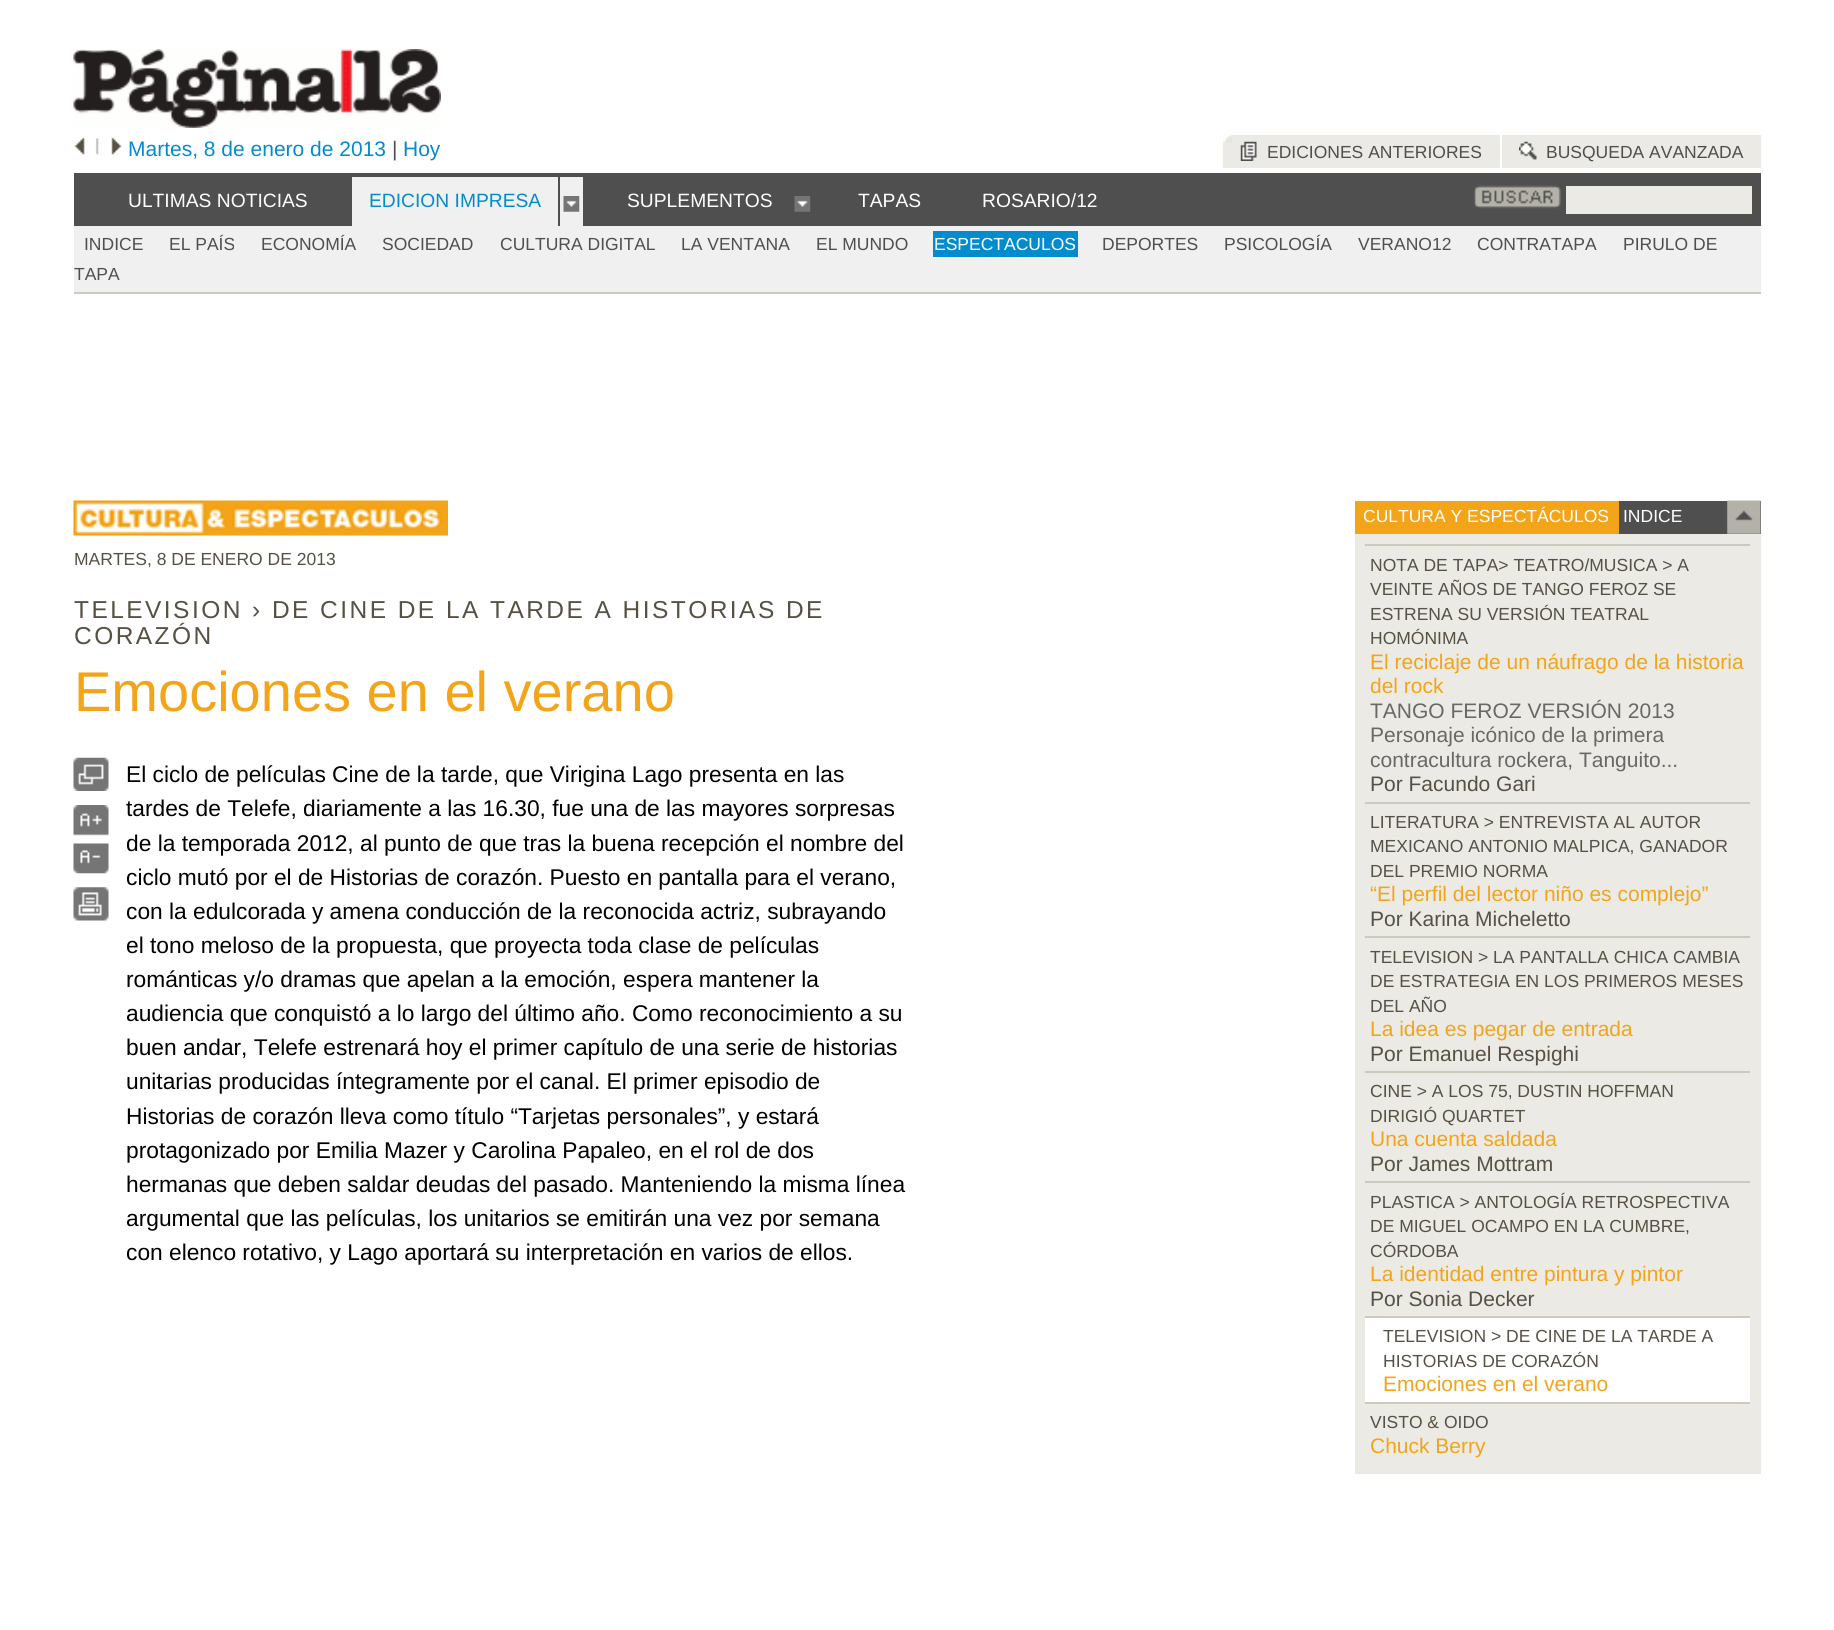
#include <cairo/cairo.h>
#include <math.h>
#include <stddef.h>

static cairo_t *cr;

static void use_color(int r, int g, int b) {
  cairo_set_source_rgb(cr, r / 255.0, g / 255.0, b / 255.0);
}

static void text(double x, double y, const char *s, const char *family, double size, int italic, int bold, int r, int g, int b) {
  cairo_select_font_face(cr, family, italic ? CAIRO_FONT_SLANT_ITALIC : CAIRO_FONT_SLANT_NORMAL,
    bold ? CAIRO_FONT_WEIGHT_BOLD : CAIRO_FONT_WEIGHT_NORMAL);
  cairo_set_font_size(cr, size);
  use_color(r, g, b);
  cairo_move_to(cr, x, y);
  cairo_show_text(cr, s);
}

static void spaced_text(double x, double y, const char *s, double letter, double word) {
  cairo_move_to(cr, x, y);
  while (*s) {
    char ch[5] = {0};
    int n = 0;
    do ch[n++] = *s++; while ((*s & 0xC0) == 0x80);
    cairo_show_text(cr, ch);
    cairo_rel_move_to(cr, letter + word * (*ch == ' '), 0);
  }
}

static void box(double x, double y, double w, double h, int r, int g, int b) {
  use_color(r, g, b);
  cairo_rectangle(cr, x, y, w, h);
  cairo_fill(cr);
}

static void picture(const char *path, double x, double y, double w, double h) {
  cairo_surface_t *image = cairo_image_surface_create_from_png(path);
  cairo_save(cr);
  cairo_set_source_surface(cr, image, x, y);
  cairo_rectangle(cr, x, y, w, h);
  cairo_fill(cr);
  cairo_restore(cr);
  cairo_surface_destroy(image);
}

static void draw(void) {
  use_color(255, 255, 255);
  cairo_paint(cr);
  picture("img_01.png", 73, 49, 368, 79);
  picture("img_02.png", 74, 137, 11, 18);
  picture("img_03.png", 95, 138, 4, 17);
  picture("img_04.png", 111, 137, 11, 18);
  box(1223, 135, 277, 33, 235, 234, 229);
  picture("img_05.png", 1223, 134, 9, 9);
  picture("img_06.png", 1240, 141, 17, 20);
  box(1502, 135, 259, 33, 235, 234, 229);
  picture("img_07.png", 1519, 141, 18, 19);
  box(74, 173, 1687, 53, 80, 79, 79);
  box(352, 177, 206, 49, 240, 240, 240);
  box(560, 177, 23, 49, 240, 240, 240);
  picture("img_08.png", 563, 196, 17, 16);
  picture("img_09.png", 794, 196, 17, 16);
  picture("img_10.png", 1473, 185, 88, 24);
  box(1566, 186, 186, 28, 235, 234, 229);
  box(74, 226, 1687, 66, 240, 240, 240);
  box(74, 292, 1687, 2, 204, 201, 189);
  box(933, 231, 145, 26, 2, 140, 205);
  picture("img_11.png", 73, 500, 375, 36);
  picture("img_12.png", 73, 757, 36, 34);
  picture("img_13.png", 73, 805, 36, 31);
  picture("img_14.png", 73, 843, 36, 31);
  picture("img_15.png", 73, 887, 36, 34);
  box(1355, 501, 264, 33, 243, 164, 25);
  box(1619, 501, 142, 33, 80, 79, 79);
  picture("img_16.png", 1727, 500, 34, 34);
  box(1355, 534, 406, 940, 235, 234, 229);
  box(1365, 544, 385, 2, 204, 201, 189);
  box(1365, 802, 385, 2, 204, 201, 189);
  box(1365, 936, 385, 2, 204, 201, 189);
  box(1365, 1071, 385, 2, 204, 201, 189);
  box(1365, 1181, 385, 2, 204, 201, 189);
  box(1365, 1318, 385, 84, 255, 255, 255);
  box(1365, 1316, 385, 2, 204, 201, 189);
  box(1365, 1402, 385, 2, 204, 201, 189);
  text(128, 156, "Martes, 8 de enero de 2013", "Liberation Sans", 21, 0, 0, 2, 140, 205);
  text(392, 156, "|", "Liberation Sans", 21, 0, 0, 80, 79, 79);
  text(403, 156, "Hoy", "Liberation Sans", 21, 0, 0, 2, 140, 205);
  text(1267, 158, "EDICIONES ANTERIORES", "Liberation Sans", 17.5, 0, 0, 80, 79, 79);
  text(1546, 158, "BUSQUEDA AVANZADA", "Liberation Sans", 17.5, 0, 0, 80, 79, 79);
  text(128, 207, "ULTIMAS NOTICIAS", "Liberation Sans", 19.25, 0, 0, 255, 255, 255);
  text(369, 207, "EDICION IMPRESA", "Liberation Sans", 19.25, 0, 0, 2, 140, 205);
  text(627, 207, "SUPLEMENTOS", "Liberation Sans", 19.25, 0, 0, 255, 255, 255);
  text(858, 207, "TAPAS", "Liberation Sans", 19.25, 0, 0, 255, 255, 255);
  text(982, 207, "ROSARIO/12", "Liberation Sans", 19.25, 0, 0, 255, 255, 255);
  text(84, 250, "INDICE", "Liberation Sans", 17.5, 0, 0, 80, 79, 79);
  text(169, 250, "EL PAÍS", "Liberation Sans", 17.5, 0, 0, 80, 79, 79);
  text(261, 250, "ECONOMÍA", "Liberation Sans", 17.5, 0, 0, 80, 79, 79);
  text(382, 250, "SOCIEDAD", "Liberation Sans", 17.5, 0, 0, 80, 79, 79);
  text(500, 250, "CULTURA DIGITAL", "Liberation Sans", 17.5, 0, 0, 80, 79, 79);
  text(681, 250, "LA VENTANA", "Liberation Sans", 17.5, 0, 0, 80, 79, 79);
  text(816, 250, "EL MUNDO", "Liberation Sans", 17.5, 0, 0, 80, 79, 79);
  text(934, 250, "ESPECTACULOS", "Liberation Sans", 17.5, 0, 0, 255, 255, 255);
  text(1102, 250, "DEPORTES", "Liberation Sans", 17.5, 0, 0, 80, 79, 79);
  text(1224, 250, "PSICOLOGÍA", "Liberation Sans", 17.5, 0, 0, 80, 79, 79);
  text(1358, 250, "VERANO12", "Liberation Sans", 17.5, 0, 0, 80, 79, 79);
  text(1477, 250, "CONTRATAPA", "Liberation Sans", 17.5, 0, 0, 80, 79, 79);
  text(1623, 250, "PIRULO DE", "Liberation Sans", 17.5, 0, 0, 80, 79, 79);
  text(74, 280, "TAPA", "Liberation Sans", 17.5, 0, 0, 80, 79, 79);
  text(74, 565, "MARTES, 8 DE ENERO DE 2013", "Liberation Sans", 17.5, 0, 0, 86, 81, 68);
  cairo_set_font_size(cr, 24.5);
  spaced_text(74, 618, "TELEVISION › DE CINE DE LA TARDE A HISTORIAS DE", 2.45, 0);
  spaced_text(74, 644, "CORAZÓN", 2.45, 0);
  text(74, 711, "Emociones en el verano", "Liberation Sans", 56, 0, 0, 243, 164, 25);
  text(126, 782, "El ciclo de películas Cine de la tarde, que Virigina Lago presenta en las", "Liberation Sans", 22.75, 0, 0, 0, 0, 0);
  text(126, 816, "tardes de Telefe, diariamente a las 16.30, fue una de las mayores sorpresas", "Liberation Sans", 22.75, 0, 0, 0, 0, 0);
  text(126, 851, "de la temporada 2012, al punto de que tras la buena recepción el nombre del", "Liberation Sans", 22.75, 0, 0, 0, 0, 0);
  text(126, 885, "ciclo mutó por el de Historias de corazón. Puesto en pantalla para el verano,", "Liberation Sans", 22.75, 0, 0, 0, 0, 0);
  text(126, 919, "con la edulcorada y amena conducción de la reconocida actriz, subrayando", "Liberation Sans", 22.75, 0, 0, 0, 0, 0);
  text(126, 953, "el tono meloso de la propuesta, que proyecta toda clase de películas", "Liberation Sans", 22.75, 0, 0, 0, 0, 0);
  text(126, 987, "románticas y/o dramas que apelan a la emoción, espera mantener la", "Liberation Sans", 22.75, 0, 0, 0, 0, 0);
  text(126, 1021, "audiencia que conquistó a lo largo del último año. Como reconocimiento a su", "Liberation Sans", 22.75, 0, 0, 0, 0, 0);
  text(126, 1055, "buen andar, Telefe estrenará hoy el primer capítulo de una serie de historias", "Liberation Sans", 22.75, 0, 0, 0, 0, 0);
  text(126, 1089, "unitarias producidas íntegramente por el canal. El primer episodio de", "Liberation Sans", 22.75, 0, 0, 0, 0, 0);
  text(126, 1124, "Historias de corazón lleva como título “Tarjetas personales”, y estará", "Liberation Sans", 22.75, 0, 0, 0, 0, 0);
  text(126, 1158, "protagonizado por Emilia Mazer y Carolina Papaleo, en el rol de dos", "Liberation Sans", 22.75, 0, 0, 0, 0, 0);
  text(126, 1192, "hermanas que deben saldar deudas del pasado. Manteniendo la misma línea", "Liberation Sans", 22.75, 0, 0, 0, 0, 0);
  text(126, 1226, "argumental que las películas, los unitarios se emitirán una vez por semana", "Liberation Sans", 22.75, 0, 0, 0, 0, 0);
  text(126, 1260, "con elenco rotativo, y Lago aportará su interpretación en varios de ellos.", "Liberation Sans", 22.75, 0, 0, 0, 0, 0);
  text(1363, 522, "CULTURA Y ESPECTÁCULOS", "Liberation Sans", 17.5, 0, 0, 255, 255, 255);
  text(1623, 522, "INDICE", "Liberation Sans", 17.5, 0, 0, 255, 255, 255);
  text(1370, 571, "NOTA DE TAPA> TEATRO/MUSICA > A", "Liberation Sans", 17.5, 0, 0, 86, 81, 68);
  text(1370, 595, "VEINTE AÑOS DE TANGO FEROZ SE", "Liberation Sans", 17.5, 0, 0, 86, 81, 68);
  text(1370, 620, "ESTRENA SU VERSIÓN TEATRAL", "Liberation Sans", 17.5, 0, 0, 86, 81, 68);
  text(1370, 644, "HOMÓNIMA", "Liberation Sans", 17.5, 0, 0, 86, 81, 68);
  text(1370, 669, "El reciclaje de un náufrago de la historia", "Liberation Sans", 21, 0, 0, 243, 164, 25);
  text(1370, 693, "del rock", "Liberation Sans", 21, 0, 0, 243, 164, 25);
  text(1370, 718, "TANGO FEROZ VERSIÓN 2013", "Liberation Sans", 21, 0, 0, 107, 103, 103);
  text(1370, 742, "Personaje icónico de la primera", "Liberation Sans", 21, 0, 0, 107, 103, 103);
  text(1370, 767, "contracultura rockera, Tanguito...", "Liberation Sans", 21, 0, 0, 107, 103, 103);
  text(1370, 791, "Por Facundo Gari", "Liberation Sans", 21, 0, 0, 86, 81, 68);
  text(1370, 828, "LITERATURA > ENTREVISTA AL AUTOR", "Liberation Sans", 17.5, 0, 0, 86, 81, 68);
  text(1370, 852, "MEXICANO ANTONIO MALPICA, GANADOR", "Liberation Sans", 17.5, 0, 0, 86, 81, 68);
  text(1370, 877, "DEL PREMIO NORMA", "Liberation Sans", 17.5, 0, 0, 86, 81, 68);
  text(1370, 901, "“El perfil del lector niño es complejo”", "Liberation Sans", 21, 0, 0, 243, 164, 25);
  text(1370, 926, "Por Karina Micheletto", "Liberation Sans", 21, 0, 0, 86, 81, 68);
  text(1370, 963, "TELEVISION > LA PANTALLA CHICA CAMBIA", "Liberation Sans", 17.5, 0, 0, 86, 81, 68);
  text(1370, 987, "DE ESTRATEGIA EN LOS PRIMEROS MESES", "Liberation Sans", 17.5, 0, 0, 86, 81, 68);
  text(1370, 1012, "DEL AÑO", "Liberation Sans", 17.5, 0, 0, 86, 81, 68);
  text(1370, 1036, "La idea es pegar de entrada", "Liberation Sans", 21, 0, 0, 243, 164, 25);
  text(1370, 1061, "Por Emanuel Respighi", "Liberation Sans", 21, 0, 0, 86, 81, 68);
  text(1370, 1097, "CINE > A LOS 75, DUSTIN HOFFMAN", "Liberation Sans", 17.5, 0, 0, 86, 81, 68);
  text(1370, 1122, "DIRIGIÓ QUARTET", "Liberation Sans", 17.5, 0, 0, 86, 81, 68);
  text(1370, 1146, "Una cuenta saldada", "Liberation Sans", 21, 0, 0, 243, 164, 25);
  text(1370, 1171, "Por James Mottram", "Liberation Sans", 21, 0, 0, 86, 81, 68);
  text(1370, 1208, "PLASTICA > ANTOLOGÍA RETROSPECTIVA", "Liberation Sans", 17.5, 0, 0, 86, 81, 68);
  text(1370, 1232, "DE MIGUEL OCAMPO EN LA CUMBRE,", "Liberation Sans", 17.5, 0, 0, 86, 81, 68);
  text(1370, 1257, "CÓRDOBA", "Liberation Sans", 17.5, 0, 0, 86, 81, 68);
  text(1370, 1281, "La identidad entre pintura y pintor", "Liberation Sans", 21, 0, 0, 243, 164, 25);
  text(1370, 1306, "Por Sonia Decker", "Liberation Sans", 21, 0, 0, 86, 81, 68);
  text(1383, 1342, "TELEVISION > DE CINE DE LA TARDE A", "Liberation Sans", 17.5, 0, 0, 86, 81, 68);
  text(1383, 1367, "HISTORIAS DE CORAZÓN", "Liberation Sans", 17.5, 0, 0, 86, 81, 68);
  text(1383, 1391, "Emociones en el verano", "Liberation Sans", 21, 0, 0, 243, 164, 25);
  text(1370, 1428, "VISTO & OIDO", "Liberation Sans", 17.5, 0, 0, 86, 81, 68);
  text(1370, 1453, "Chuck Berry", "Liberation Sans", 21, 0, 0, 243, 164, 25);
}

int main(void) {
  cairo_surface_t *surface = cairo_image_surface_create(CAIRO_FORMAT_RGB24, 1834, 1630);
  cr = cairo_create(surface);
  cairo_font_options_t *options = cairo_font_options_create();
  cairo_font_options_set_hint_metrics(options, CAIRO_HINT_METRICS_OFF);
  cairo_font_options_set_hint_style(options, CAIRO_HINT_STYLE_NONE);
  cairo_set_font_options(cr, options);
  cairo_set_miter_limit(cr, 4);
  draw();
  cairo_surface_write_to_png(surface, "out.png");
  cairo_font_options_destroy(options);
  cairo_destroy(cr);
  cairo_surface_destroy(surface);
  return 0;
}
